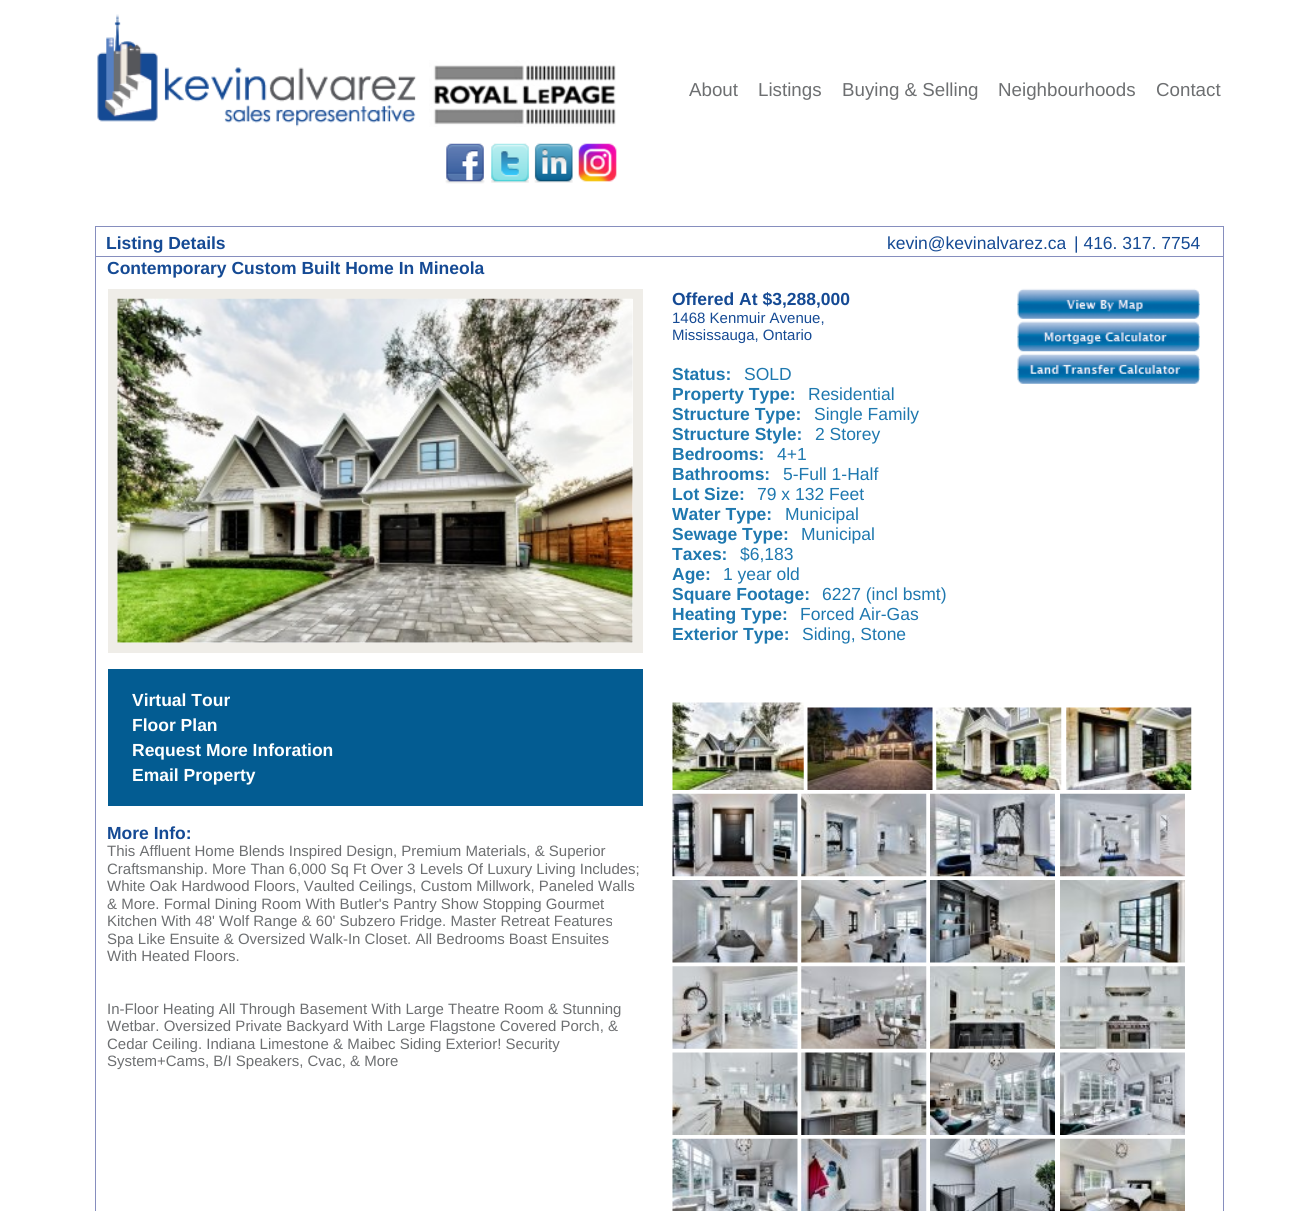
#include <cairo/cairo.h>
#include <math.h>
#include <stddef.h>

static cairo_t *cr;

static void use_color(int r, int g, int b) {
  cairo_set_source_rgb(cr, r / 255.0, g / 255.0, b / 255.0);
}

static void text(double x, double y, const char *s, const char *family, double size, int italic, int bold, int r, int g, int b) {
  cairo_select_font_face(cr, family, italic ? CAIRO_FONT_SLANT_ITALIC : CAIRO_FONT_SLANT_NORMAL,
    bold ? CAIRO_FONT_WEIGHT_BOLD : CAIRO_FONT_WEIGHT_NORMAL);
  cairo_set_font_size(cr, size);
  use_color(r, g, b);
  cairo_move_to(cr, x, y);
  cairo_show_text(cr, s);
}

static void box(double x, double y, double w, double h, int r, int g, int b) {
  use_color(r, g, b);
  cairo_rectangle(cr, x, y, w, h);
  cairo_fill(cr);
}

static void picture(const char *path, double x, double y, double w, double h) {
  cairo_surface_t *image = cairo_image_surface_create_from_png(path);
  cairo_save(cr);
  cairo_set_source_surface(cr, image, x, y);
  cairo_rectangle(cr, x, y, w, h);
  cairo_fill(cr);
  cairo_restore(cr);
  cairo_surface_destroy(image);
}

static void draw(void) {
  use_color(255, 255, 255);
  cairo_paint(cr);
  picture("img_01.png", 97, 14, 519, 113);
  picture("img_02.png", 445, 143, 40, 41);
  picture("img_03.png", 491, 143, 38, 40);
  picture("img_04.png", 534, 143, 39, 40);
  picture("img_05.png", 578, 143, 39, 39);
  box(95, 226, 1129, 1, 134, 142, 190);
  box(1223, 226, 1, 30, 134, 142, 190);
  box(95, 226, 1, 30, 134, 142, 190);
  cairo_rectangle(cr, 95.5, 256.5, 1128, 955);
  cairo_set_line_width(cr, 1);
  cairo_stroke(cr);
  picture("img_06.png", 1017, 288, 183, 31);
  picture("img_07.png", 1017, 321, 183, 31);
  picture("img_08.png", 1017, 353, 183, 31);
  picture("img_09.png", 672, 702, 132, 88);
  picture("img_10.png", 807, 707, 126, 83);
  picture("img_11.png", 936, 707, 126, 83);
  picture("img_12.png", 1066, 707, 126, 83);
  picture("img_13.png", 672, 793, 126, 84);
  picture("img_14.png", 801, 793, 126, 84);
  picture("img_15.png", 930, 793, 125, 84);
  picture("img_16.png", 1060, 793, 125, 84);
  picture("img_17.png", 672, 880, 126, 83);
  picture("img_18.png", 801, 880, 126, 83);
  picture("img_19.png", 930, 880, 125, 83);
  picture("img_20.png", 1060, 880, 125, 83);
  picture("img_21.png", 672, 966, 126, 83);
  picture("img_22.png", 801, 966, 126, 83);
  picture("img_23.png", 930, 966, 125, 83);
  picture("img_24.png", 1060, 966, 125, 83);
  picture("img_25.png", 672, 1052, 126, 83);
  picture("img_26.png", 801, 1052, 126, 83);
  picture("img_27.png", 930, 1052, 125, 83);
  picture("img_28.png", 1060, 1052, 125, 83);
  picture("img_29.png", 672, 1138, 126, 73);
  picture("img_30.png", 801, 1138, 126, 73);
  picture("img_31.png", 930, 1138, 125, 73);
  picture("img_32.png", 1060, 1138, 125, 73);
  cairo_rectangle(cr, 113, 294, 525, 354);
  use_color(239, 237, 232);
  cairo_set_line_width(cr, 10);
  cairo_stroke(cr);
  picture("img_33.png", 117, 298, 516, 345);
  box(108, 669, 535, 137, 3, 92, 146);
  text(689, 96, "About", "Liberation Sans", 18.75, 0, 0, 109, 111, 113);
  text(758, 96, "Listings", "Liberation Sans", 18.75, 0, 0, 109, 111, 113);
  text(842, 96, "Buying & Selling", "Liberation Sans", 18.75, 0, 0, 109, 111, 113);
  text(998, 96, "Neighbourhoods", "Liberation Sans", 18.75, 0, 0, 109, 111, 113);
  text(1156, 96, "Contact", "Liberation Sans", 18.75, 0, 0, 109, 111, 113);
  text(106, 249, "Listing Details", "Liberation Sans", 17.5, 0, 1, 21, 74, 148);
  text(887, 249, "kevin@kevinalvarez.ca", "Liberation Sans", 17.5, 0, 0, 21, 74, 148);
  text(1074, 249, "| 416. 317. 7754", "Liberation Sans", 17.5, 0, 0, 21, 74, 148);
  text(107, 274, "Contemporary Custom Built Home In Mineola", "Liberation Sans", 17.5, 0, 1, 21, 74, 148);
  text(672, 305, "Offered At $3,288,000", "Liberation Sans", 17.5, 0, 1, 21, 74, 148);
  text(672, 323, "1468 Kenmuir Avenue,", "Liberation Sans", 15, 0, 0, 21, 74, 148);
  text(672, 340, "Mississauga, Ontario", "Liberation Sans", 15, 0, 0, 21, 74, 148);
  text(672, 380, "Status:", "Liberation Sans", 17.5, 0, 1, 30, 120, 175);
  text(744, 380, "SOLD", "Liberation Sans", 17.5, 0, 0, 30, 120, 175);
  text(672, 400, "Property Type:", "Liberation Sans", 17.5, 0, 1, 30, 120, 175);
  text(808, 400, "Residential", "Liberation Sans", 17.5, 0, 0, 30, 120, 175);
  text(672, 420, "Structure Type:", "Liberation Sans", 17.5, 0, 1, 30, 120, 175);
  text(814, 420, "Single Family", "Liberation Sans", 17.5, 0, 0, 30, 120, 175);
  text(672, 440, "Structure Style:", "Liberation Sans", 17.5, 0, 1, 30, 120, 175);
  text(815, 440, "2 Storey", "Liberation Sans", 17.5, 0, 0, 30, 120, 175);
  text(672, 460, "Bedrooms:", "Liberation Sans", 17.5, 0, 1, 30, 120, 175);
  text(777, 460, "4+1", "Liberation Sans", 17.5, 0, 0, 30, 120, 175);
  text(672, 480, "Bathrooms:", "Liberation Sans", 17.5, 0, 1, 30, 120, 175);
  text(783, 480, "5-Full 1-Half", "Liberation Sans", 17.5, 0, 0, 30, 120, 175);
  text(672, 500, "Lot Size:", "Liberation Sans", 17.5, 0, 1, 30, 120, 175);
  text(757, 500, "79 x 132 Feet", "Liberation Sans", 17.5, 0, 0, 30, 120, 175);
  text(672, 520, "Water Type:", "Liberation Sans", 17.5, 0, 1, 30, 120, 175);
  text(785, 520, "Municipal", "Liberation Sans", 17.5, 0, 0, 30, 120, 175);
  text(672, 540, "Sewage Type:", "Liberation Sans", 17.5, 0, 1, 30, 120, 175);
  text(801, 540, "Municipal", "Liberation Sans", 17.5, 0, 0, 30, 120, 175);
  text(672, 560, "Taxes:", "Liberation Sans", 17.5, 0, 1, 30, 120, 175);
  text(740, 560, "$6,183", "Liberation Sans", 17.5, 0, 0, 30, 120, 175);
  text(672, 580, "Age:", "Liberation Sans", 17.5, 0, 1, 30, 120, 175);
  text(723, 580, "1 year old", "Liberation Sans", 17.5, 0, 0, 30, 120, 175);
  text(672, 600, "Square Footage:", "Liberation Sans", 17.5, 0, 1, 30, 120, 175);
  text(822, 600, "6227 (incl bsmt)", "Liberation Sans", 17.5, 0, 0, 30, 120, 175);
  text(672, 620, "Heating Type:", "Liberation Sans", 17.5, 0, 1, 30, 120, 175);
  text(800, 620, "Forced Air-Gas", "Liberation Sans", 17.5, 0, 0, 30, 120, 175);
  text(672, 640, "Exterior Type:", "Liberation Sans", 17.5, 0, 1, 30, 120, 175);
  text(802, 640, "Siding, Stone", "Liberation Sans", 17.5, 0, 0, 30, 120, 175);
  text(132, 706, "Virtual Tour", "Liberation Sans", 17.5, 0, 1, 255, 255, 255);
  text(132, 731, "Floor Plan", "Liberation Sans", 17.5, 0, 1, 255, 255, 255);
  text(132, 756, "Request More Inforation", "Liberation Sans", 17.5, 0, 1, 255, 255, 255);
  text(132, 781, "Email Property", "Liberation Sans", 17.5, 0, 1, 255, 255, 255);
  text(107, 839, "More Info:", "Liberation Sans", 17.5, 0, 1, 21, 74, 148);
  text(107, 856, "This Affluent Home Blends Inspired Design, Premium Materials, & Superior", "Liberation Sans", 15, 0, 0, 109, 111, 113);
  text(107, 874, "Craftsmanship. More Than 6,000 Sq Ft Over 3 Levels Of Luxury Living Includes;", "Liberation Sans", 15, 0, 0, 109, 111, 113);
  text(107, 891, "White Oak Hardwood Floors, Vaulted Ceilings, Custom Millwork, Paneled Walls", "Liberation Sans", 15, 0, 0, 109, 111, 113);
  text(107, 909, "& More. Formal Dining Room With Butler's Pantry Show Stopping Gourmet", "Liberation Sans", 15, 0, 0, 109, 111, 113);
  text(107, 926, "Kitchen With 48' Wolf Range & 60' Subzero Fridge. Master Retreat Features", "Liberation Sans", 15, 0, 0, 109, 111, 113);
  text(107, 944, "Spa Like Ensuite & Oversized Walk-In Closet. All Bedrooms Boast Ensuites", "Liberation Sans", 15, 0, 0, 109, 111, 113);
  text(107, 961, "With Heated Floors.", "Liberation Sans", 15, 0, 0, 109, 111, 113);
  text(107, 1014, "In-Floor Heating All Through Basement With Large Theatre Room & Stunning", "Liberation Sans", 15, 0, 0, 109, 111, 113);
  text(107, 1031, "Wetbar. Oversized Private Backyard With Large Flagstone Covered Porch, &", "Liberation Sans", 15, 0, 0, 109, 111, 113);
  text(107, 1049, "Cedar Ceiling. Indiana Limestone & Maibec Siding Exterior! Security", "Liberation Sans", 15, 0, 0, 109, 111, 113);
  text(107, 1066, "System+Cams, B/I Speakers, Cvac, & More", "Liberation Sans", 15, 0, 0, 109, 111, 113);
}

int main(void) {
  cairo_surface_t *surface = cairo_image_surface_create(CAIRO_FORMAT_RGB24, 1314, 1211);
  cr = cairo_create(surface);
  cairo_font_options_t *options = cairo_font_options_create();
  cairo_font_options_set_hint_metrics(options, CAIRO_HINT_METRICS_OFF);
  cairo_font_options_set_hint_style(options, CAIRO_HINT_STYLE_NONE);
  cairo_set_font_options(cr, options);
  cairo_set_miter_limit(cr, 4);
  draw();
  cairo_surface_write_to_png(surface, "out.png");
  cairo_font_options_destroy(options);
  cairo_destroy(cr);
  cairo_surface_destroy(surface);
  return 0;
}
